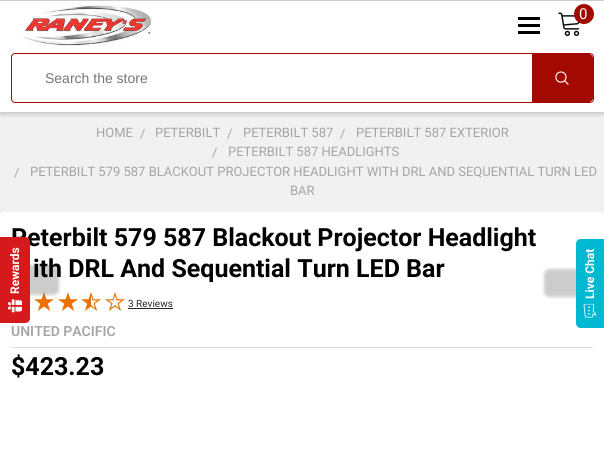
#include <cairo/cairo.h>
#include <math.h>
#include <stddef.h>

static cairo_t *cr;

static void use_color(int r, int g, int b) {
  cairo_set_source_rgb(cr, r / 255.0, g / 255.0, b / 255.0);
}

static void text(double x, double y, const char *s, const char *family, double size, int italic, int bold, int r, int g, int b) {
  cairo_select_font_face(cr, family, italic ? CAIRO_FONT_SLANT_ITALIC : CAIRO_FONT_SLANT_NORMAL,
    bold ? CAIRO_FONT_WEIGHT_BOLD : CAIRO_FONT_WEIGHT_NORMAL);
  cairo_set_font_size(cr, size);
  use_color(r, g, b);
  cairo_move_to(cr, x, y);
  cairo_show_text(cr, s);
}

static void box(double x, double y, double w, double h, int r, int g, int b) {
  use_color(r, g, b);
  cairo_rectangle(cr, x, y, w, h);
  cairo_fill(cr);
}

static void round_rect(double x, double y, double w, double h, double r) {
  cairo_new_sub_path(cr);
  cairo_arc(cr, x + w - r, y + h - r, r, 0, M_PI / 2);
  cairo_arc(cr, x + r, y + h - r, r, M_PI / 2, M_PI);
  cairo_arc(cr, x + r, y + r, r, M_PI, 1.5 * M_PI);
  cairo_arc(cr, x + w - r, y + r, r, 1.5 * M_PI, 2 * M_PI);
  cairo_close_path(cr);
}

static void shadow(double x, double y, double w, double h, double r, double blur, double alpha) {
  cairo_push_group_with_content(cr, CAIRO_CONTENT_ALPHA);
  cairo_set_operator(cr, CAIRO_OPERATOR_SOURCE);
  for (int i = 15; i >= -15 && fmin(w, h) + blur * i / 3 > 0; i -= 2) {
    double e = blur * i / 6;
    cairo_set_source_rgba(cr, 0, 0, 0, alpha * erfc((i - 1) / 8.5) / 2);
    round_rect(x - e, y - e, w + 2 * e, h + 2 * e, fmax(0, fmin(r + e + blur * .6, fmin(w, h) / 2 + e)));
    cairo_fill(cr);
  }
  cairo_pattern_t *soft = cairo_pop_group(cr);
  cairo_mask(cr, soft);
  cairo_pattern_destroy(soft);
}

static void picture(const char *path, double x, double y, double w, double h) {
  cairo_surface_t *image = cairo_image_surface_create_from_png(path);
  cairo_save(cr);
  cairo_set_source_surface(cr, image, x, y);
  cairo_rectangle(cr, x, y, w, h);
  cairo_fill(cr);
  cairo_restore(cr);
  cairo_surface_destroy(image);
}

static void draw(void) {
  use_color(241, 241, 242);
  cairo_paint(cr);
  use_color(0, 0, 0);
  shadow(0, 2, 604, 112, 0, 2.5, 0.2);
  box(0, 1, 604, 111, 255, 255, 255);
  box(0, 0, 604, 1, 204, 204, 204);
  picture("img_01.png", 22, 5, 131, 42);
  picture("img_02.png", 558, 12, 22, 24);
  use_color(161, 9, 0);
  cairo_arc(cr, 584, 14, 10, 0, 2 * M_PI);
  cairo_fill(cr);
  box(518, 24, 22, 3, 0, 0, 0);
  box(518, 17, 22, 3, 0, 0, 0);
  box(518, 31, 22, 3, 0, 0, 0);
  round_rect(11.5, 53.5, 582, 49, 3.5);
  use_color(161, 9, 1);
  cairo_set_line_width(cr, 1);
  cairo_stroke(cr);
  cairo_new_path(cr);
  cairo_move_to(cr, 532, 54);
  cairo_line_to(cr, 589, 54);
  cairo_curve_to(cr, 591, 54, 593, 56, 593, 58);
  cairo_line_to(cr, 593, 98);
  cairo_curve_to(cr, 593, 100, 591, 102, 589, 102);
  cairo_line_to(cr, 532, 102);
  cairo_close_path(cr);
  cairo_fill(cr);
  picture("img_03.png", 555, 71, 14, 14);
  use_color(255, 255, 255);
  round_rect(0, 212, 604, 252, 4);
  cairo_fill(cr);
  picture("img_04.png", 30, 299, 1, 1);
  picture("img_05.png", 34, 292, 20, 19);
  picture("img_05.png", 58, 292, 20, 19);
  picture("img_06.png", 81, 292, 20, 19);
  picture("img_07.png", 105, 292, 20, 19);
  box(128, 308, 45, 1, 40, 40, 40);
  box(11, 347, 582, 1, 220, 220, 220);
  use_color(0, 0, 0);
  shadow(-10, 265, 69, 30, 5, 1.5, 0.2);
  shadow(544, 269, 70, 28, 5, 1.5, 0.2);
  use_color(0, 184, 210);
  cairo_new_path(cr);
  cairo_move_to(cr, 576, 323);
  cairo_line_to(cr, 576, 244);
  cairo_curve_to(cr, 576, 241, 578, 239, 581, 239);
  cairo_line_to(cr, 604, 239);
  cairo_line_to(cr, 604, 328);
  cairo_line_to(cr, 581, 328);
  cairo_curve_to(cr, 578, 328, 576, 326, 576, 323);
  cairo_close_path(cr);
  cairo_fill(cr);
  picture("img_09.png", 583, 303, 14, 15);
  text(579, 19, "0", "Roboto", 15, 0, 0, 255, 255, 255);
  text(45, 83, "Search the store", "Liberation Sans", 14, 0, 0, 117, 117, 117);
  text(96, 137, "HOME", "Roboto", 13, 0, 0, 165, 165, 165);
  text(140, 138, "/", "Roboto", 13, 0, 0, 165, 165, 165);
  text(155, 137, "PETERBILT", "Roboto", 13, 0, 0, 165, 165, 165);
  text(227, 138, "/", "Roboto", 13, 0, 0, 165, 165, 165);
  text(243, 137, "PETERBILT 587", "Roboto", 13, 0, 0, 165, 165, 165);
  text(340, 138, "/", "Roboto", 13, 0, 0, 165, 165, 165);
  text(356, 137, "PETERBILT 587 EXTERIOR", "Roboto", 13, 0, 0, 165, 165, 165);
  text(212, 157, "/", "Roboto", 13, 0, 0, 165, 165, 165);
  text(228, 156, "PETERBILT 587 HEADLIGHTS", "Roboto", 13, 0, 0, 165, 165, 165);
  text(14, 177, "/", "Roboto", 13, 0, 0, 165, 165, 165);
  text(30, 176, "PETERBILT 579 587 BLACKOUT PROJECTOR HEADLIGHT WITH DRL AND SEQUENTIAL TURN LED", "Roboto", 13, 0, 0, 165, 165, 165);
  text(290, 195, "BAR", "Roboto", 13, 0, 0, 165, 165, 165);
  text(11, 246, "Peterbilt 579 587 Blackout Projector Headlight", "Roboto", 25, 0, 1, 0, 0, 0);
  text(33, 277, "ith DRL And Sequential Turn LED Bar", "Roboto", 25, 0, 1, 0, 0, 0);
  text(128, 307, "3 Reviews", "Roboto", 10, 0, 0, 40, 40, 40);
  text(11, 336, "UNITED PACIFIC", "Roboto SemiBold", 14, 0, 0, 165, 165, 165);
  text(11, 375, "$423.23", "Roboto", 25, 0, 1, 0, 0, 0);
  use_color(213, 25, 29);
  cairo_new_path(cr);
  cairo_move_to(cr, 0, 323);
  cairo_line_to(cr, 0, 237);
  cairo_line_to(cr, 25, 237);
  cairo_curve_to(cr, 28, 237, 30, 239, 30, 242);
  cairo_line_to(cr, 30, 318);
  cairo_curve_to(cr, 30, 321, 28, 323, 25, 323);
  cairo_close_path(cr);
  cairo_fill(cr);
  cairo_save(cr);
  cairo_translate(cr, 19, 294);
  cairo_rotate(cr, -90 * M_PI / 180);
  text(0, 0, "Rewards", "Roboto", 12, 0, 1, 255, 255, 255);
  cairo_restore(cr);
  picture("img_08.png", 8, 299, 14, 14);
  cairo_save(cr);
  cairo_translate(cr, 594, 299);
  cairo_rotate(cr, -90 * M_PI / 180);
  text(0, 0, "Live Chat", "Roboto", 12, 0, 1, 255, 255, 255);
  cairo_restore(cr);
}

int main(void) {
  cairo_surface_t *surface = cairo_image_surface_create(CAIRO_FORMAT_RGB24, 604, 460);
  cr = cairo_create(surface);
  cairo_font_options_t *options = cairo_font_options_create();
  cairo_font_options_set_hint_metrics(options, CAIRO_HINT_METRICS_OFF);
  cairo_font_options_set_hint_style(options, CAIRO_HINT_STYLE_NONE);
  cairo_set_font_options(cr, options);
  cairo_set_miter_limit(cr, 4);
  draw();
  cairo_surface_write_to_png(surface, "out.png");
  cairo_font_options_destroy(options);
  cairo_destroy(cr);
  cairo_surface_destroy(surface);
  return 0;
}
